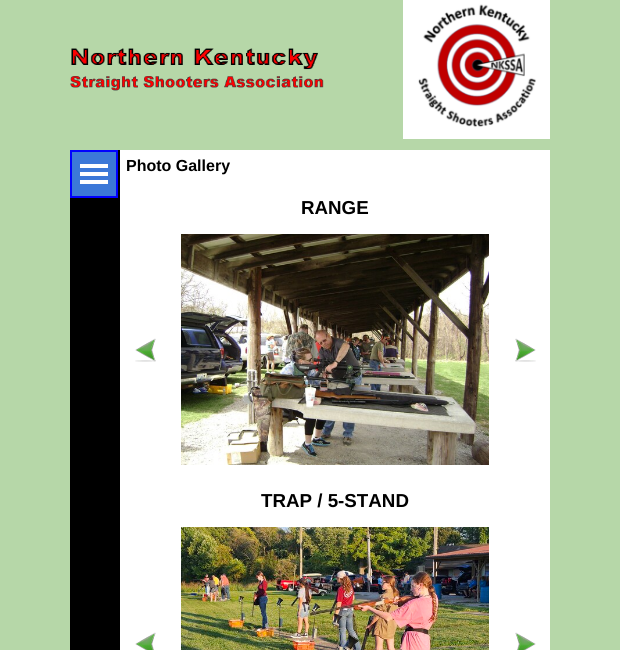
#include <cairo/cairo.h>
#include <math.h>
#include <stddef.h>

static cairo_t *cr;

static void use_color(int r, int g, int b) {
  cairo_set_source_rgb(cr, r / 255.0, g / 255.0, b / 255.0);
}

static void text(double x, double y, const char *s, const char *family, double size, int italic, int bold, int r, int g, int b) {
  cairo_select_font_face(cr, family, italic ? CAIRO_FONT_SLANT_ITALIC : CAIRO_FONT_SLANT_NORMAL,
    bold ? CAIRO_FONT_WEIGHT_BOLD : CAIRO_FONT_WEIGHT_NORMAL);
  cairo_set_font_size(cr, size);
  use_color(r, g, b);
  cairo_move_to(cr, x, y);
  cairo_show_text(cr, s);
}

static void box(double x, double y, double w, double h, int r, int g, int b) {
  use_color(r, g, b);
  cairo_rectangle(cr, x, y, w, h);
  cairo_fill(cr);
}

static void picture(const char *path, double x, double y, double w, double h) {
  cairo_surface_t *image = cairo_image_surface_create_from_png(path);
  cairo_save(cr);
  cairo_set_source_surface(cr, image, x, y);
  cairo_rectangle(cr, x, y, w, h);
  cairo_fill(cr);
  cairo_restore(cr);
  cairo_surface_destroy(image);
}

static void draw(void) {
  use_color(182, 215, 168);
  cairo_paint(cr);
  picture("img_01.png", 71, 48, 247, 22);
  picture("img_02.png", 403, 0, 147, 139);
  picture("img_03.png", 70, 76, 254, 15);
  box(70, 150, 50, 500, 0, 0, 0);
  use_color(60, 120, 216);
  cairo_rectangle(cr, 71, 151, 46, 46);
  cairo_fill_preserve(cr);
  use_color(0, 0, 255);
  cairo_stroke(cr);
  box(80, 164, 28, 4, 255, 255, 255);
  box(80, 172, 28, 4, 255, 255, 255);
  box(80, 180, 28, 4, 255, 255, 255);
  box(120, 150, 430, 500, 255, 255, 255);
  picture("img_04.png", 135, 338, 21, 24);
  picture("img_05.png", 181, 234, 308, 231);
  picture("img_06.png", 515, 338, 21, 24);
  picture("img_07.png", 135, 632, 21, 18);
  picture("img_08.png", 181, 527, 308, 123);
  picture("img_09.png", 515, 632, 21, 18);
  text(126, 171, "Photo Gallery", "Liberation Sans", 16, 0, 1, 0, 0, 0);
  text(301, 214, "RANGE", "Liberation Sans", 18.75, 0, 1, 0, 0, 0);
  text(261, 507, "TRAP / 5-STAND", "Liberation Sans", 18.75, 0, 1, 0, 0, 0);
}

int main(void) {
  cairo_surface_t *surface = cairo_image_surface_create(CAIRO_FORMAT_RGB24, 620, 650);
  cr = cairo_create(surface);
  cairo_font_options_t *options = cairo_font_options_create();
  cairo_font_options_set_hint_metrics(options, CAIRO_HINT_METRICS_OFF);
  cairo_font_options_set_hint_style(options, CAIRO_HINT_STYLE_NONE);
  cairo_set_font_options(cr, options);
  cairo_set_miter_limit(cr, 4);
  draw();
  cairo_surface_write_to_png(surface, "out.png");
  cairo_font_options_destroy(options);
  cairo_destroy(cr);
  cairo_surface_destroy(surface);
  return 0;
}
